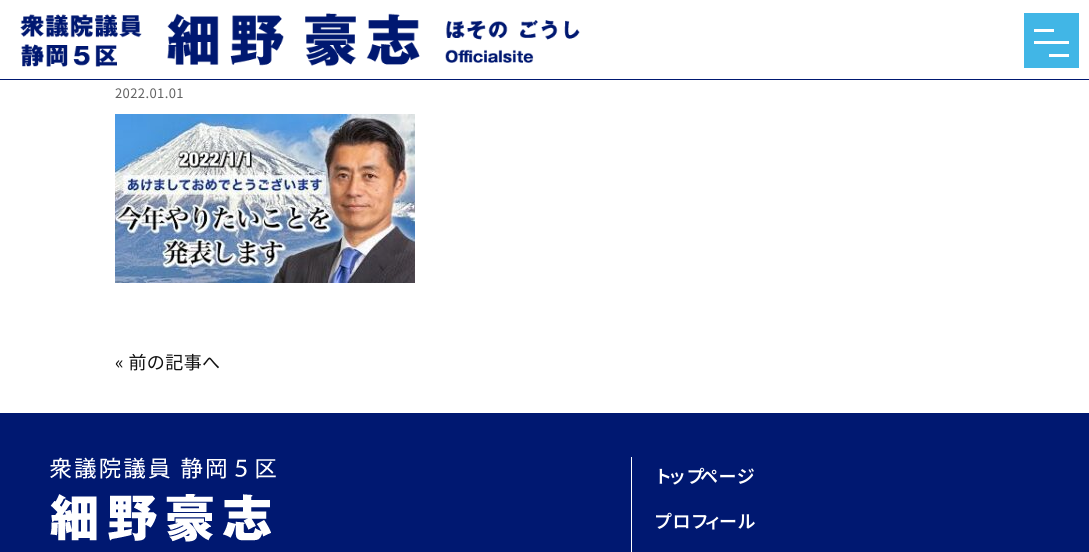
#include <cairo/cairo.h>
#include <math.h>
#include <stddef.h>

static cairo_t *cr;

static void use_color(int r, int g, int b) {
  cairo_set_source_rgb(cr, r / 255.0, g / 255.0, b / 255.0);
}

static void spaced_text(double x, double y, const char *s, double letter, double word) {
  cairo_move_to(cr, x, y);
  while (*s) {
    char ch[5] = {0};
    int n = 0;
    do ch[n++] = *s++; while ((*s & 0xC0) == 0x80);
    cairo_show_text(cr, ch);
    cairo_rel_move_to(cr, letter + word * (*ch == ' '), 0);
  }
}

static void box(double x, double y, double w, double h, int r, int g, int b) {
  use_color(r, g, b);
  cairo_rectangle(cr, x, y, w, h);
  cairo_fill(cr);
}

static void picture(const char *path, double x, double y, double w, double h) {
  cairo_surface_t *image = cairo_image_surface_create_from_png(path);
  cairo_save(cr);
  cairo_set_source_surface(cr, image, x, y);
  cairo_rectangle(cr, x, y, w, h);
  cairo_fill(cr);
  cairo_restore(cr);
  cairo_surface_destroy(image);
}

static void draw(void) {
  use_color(255, 255, 255);
  cairo_paint(cr);
  box(0, 79, 1089, 1, 0, 24, 113);
  picture("img_01.png", 20, 13, 560, 54);
  box(1024, 13, 55, 55, 65, 182, 230);
  box(1034, 41, 35, 3, 255, 255, 255);
  box(1034, 29, 20, 3, 255, 255, 255);
  box(1049, 54, 20, 3, 255, 255, 255);
  picture("img_02.png", 115, 114, 300, 169);
  box(0, 413, 1089, 139, 0, 24, 113);
  picture("img_03.png", 50, 457, 226, 85);
  box(631, 457, 1, 95, 255, 255, 255);
  cairo_select_font_face(cr, "Noto Sans JP", CAIRO_FONT_SLANT_NORMAL, CAIRO_FONT_WEIGHT_NORMAL);
  cairo_set_font_size(cr, 13);
  use_color(98, 98, 98);
  spaced_text(115, 98, "2022.01.01", 0.4, 0);
  cairo_set_font_size(cr, 18);
  use_color(17, 17, 17);
  spaced_text(115, 369, "« 前の記事へ", 0.4, 0);
  cairo_select_font_face(cr, "Noto Sans JP SemiBold", CAIRO_FONT_SLANT_NORMAL, CAIRO_FONT_WEIGHT_NORMAL);
  use_color(255, 255, 255);
  spaced_text(654, 483, "ト", 0.4, 0);
  spaced_text(668, 483, "ップ", 0.4, 0);
  spaced_text(700, 483, "ページ", 0.4, 0);
  spaced_text(654, 528, "プロフ", 0.4, 0);
  spaced_text(704, 528, "ィ", 0.4, 0);
  spaced_text(719, 528, "ール", 0.4, 0);
}

int main(void) {
  cairo_surface_t *surface = cairo_image_surface_create(CAIRO_FORMAT_RGB24, 1089, 552);
  cr = cairo_create(surface);
  cairo_font_options_t *options = cairo_font_options_create();
  cairo_font_options_set_hint_metrics(options, CAIRO_HINT_METRICS_OFF);
  cairo_font_options_set_hint_style(options, CAIRO_HINT_STYLE_NONE);
  cairo_set_font_options(cr, options);
  cairo_set_miter_limit(cr, 4);
  draw();
  cairo_surface_write_to_png(surface, "out.png");
  cairo_font_options_destroy(options);
  cairo_destroy(cr);
  cairo_surface_destroy(surface);
  return 0;
}
